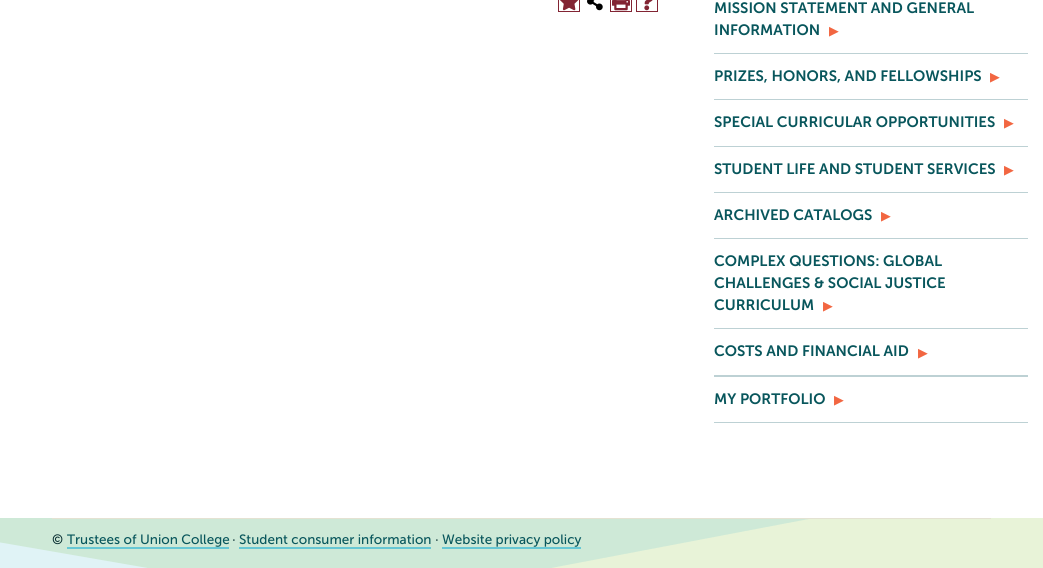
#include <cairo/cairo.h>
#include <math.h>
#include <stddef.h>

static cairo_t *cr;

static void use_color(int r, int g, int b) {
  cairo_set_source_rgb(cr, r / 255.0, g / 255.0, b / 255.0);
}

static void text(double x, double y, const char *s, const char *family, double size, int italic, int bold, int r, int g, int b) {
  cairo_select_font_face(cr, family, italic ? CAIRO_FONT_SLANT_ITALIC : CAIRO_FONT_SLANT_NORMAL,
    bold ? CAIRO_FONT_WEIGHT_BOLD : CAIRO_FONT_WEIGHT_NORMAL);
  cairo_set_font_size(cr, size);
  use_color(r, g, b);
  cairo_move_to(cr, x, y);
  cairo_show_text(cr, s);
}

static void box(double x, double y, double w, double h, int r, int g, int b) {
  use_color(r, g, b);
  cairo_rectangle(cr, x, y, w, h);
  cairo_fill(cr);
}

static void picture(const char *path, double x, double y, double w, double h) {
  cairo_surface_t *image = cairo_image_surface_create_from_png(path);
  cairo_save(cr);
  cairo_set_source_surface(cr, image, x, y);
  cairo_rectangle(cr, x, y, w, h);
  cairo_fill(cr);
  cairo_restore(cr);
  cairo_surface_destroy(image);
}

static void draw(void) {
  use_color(255, 255, 255);
  cairo_paint(cr);
  cairo_rectangle(cr, 558.5, -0.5, 21, 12);
  use_color(130, 36, 51);
  cairo_set_line_width(cr, 1);
  cairo_stroke(cr);
  picture("img_01.png", 560, 0, 19, 11);
  picture("img_02.png", 587, 0, 16, 11);
  cairo_rectangle(cr, 610.5, -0.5, 21, 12);
  cairo_stroke(cr);
  picture("img_03.png", 612, 0, 18, 11);
  cairo_rectangle(cr, 636.5, -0.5, 21, 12);
  cairo_stroke(cr);
  picture("img_04.png", 644, 0, 9, 11);
  box(714, 53, 314, 1, 189, 209, 212);
  box(714, 99, 314, 1, 189, 209, 212);
  box(714, 146, 314, 1, 189, 209, 212);
  box(714, 192, 314, 1, 189, 209, 212);
  box(714, 238, 314, 1, 189, 209, 212);
  box(714, 328, 314, 1, 189, 209, 212);
  box(714, 375, 314, 2, 189, 209, 212);
  box(714, 422, 314, 1, 189, 209, 212);
  use_color(232, 243, 216);
  cairo_new_path(cr);
  cairo_move_to(cr, -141, 518);
  cairo_line_to(cr, 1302, 518);
  cairo_line_to(cr, 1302, 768);
  cairo_close_path(cr);
  cairo_fill(cr);
  cairo_set_source_rgba(cr, 0.4, 0.78, 0.831, 0.2);
  cairo_new_path(cr);
  cairo_move_to(cr, 814, 518);
  cairo_line_to(cr, -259, 518);
  cairo_line_to(cr, -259, 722);
  cairo_close_path(cr);
  cairo_fill(cr);
  box(52, 518, 939, 1, 228, 226, 210);
  box(67, 547, 162, 2, 102, 199, 212);
  box(239, 547, 192, 2, 102, 199, 212);
  box(442, 547, 139, 2, 102, 199, 212);
  text(714, 13, "MISSION STATEMENT AND GENERAL", "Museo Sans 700 SemiBold", 15, 0, 0, 8, 86, 92);
  text(714, 35, "INFORMATION", "Museo Sans 700 SemiBold", 15, 0, 0, 8, 86, 92);
  text(829, 35, "▶", "DejaVu Sans", 12, 0, 1, 242, 102, 65);
  text(714, 81, "PRIZES, HONORS, AND FELLOWSHIPS", "Museo Sans 700 SemiBold", 15, 0, 0, 8, 86, 92);
  text(990, 81, "▶", "DejaVu Sans", 12, 0, 1, 242, 102, 65);
  text(714, 127, "SPECIAL CURRICULAR OPPORTUNITIES", "Museo Sans 700 SemiBold", 15, 0, 0, 8, 86, 92);
  text(1004, 127, "▶", "DejaVu Sans", 12, 0, 1, 242, 102, 65);
  text(714, 174, "STUDENT LIFE AND STUDENT SERVICES", "Museo Sans 700 SemiBold", 15, 0, 0, 8, 86, 92);
  text(1004, 174, "▶", "DejaVu Sans", 12, 0, 1, 242, 102, 65);
  text(714, 220, "ARCHIVED CATALOGS", "Museo Sans 700 SemiBold", 15, 0, 0, 8, 86, 92);
  text(881, 220, "▶", "DejaVu Sans", 12, 0, 1, 242, 102, 65);
  text(714, 266, "COMPLEX QUESTIONS: GLOBAL", "Museo Sans 700 SemiBold", 15, 0, 0, 8, 86, 92);
  text(714, 288, "CHALLENGES & SOCIAL JUSTICE", "Museo Sans 700 SemiBold", 15, 0, 0, 8, 86, 92);
  text(714, 310, "CURRICULUM", "Museo Sans 700 SemiBold", 15, 0, 0, 8, 86, 92);
  text(823, 310, "▶", "DejaVu Sans", 12, 0, 1, 242, 102, 65);
  text(714, 356, "COSTS AND FINANCIAL AID", "Museo Sans 700 SemiBold", 15, 0, 0, 8, 86, 92);
  text(918, 357, "▶", "DejaVu Sans", 12, 0, 1, 242, 102, 65);
  text(714, 404, "MY PORTFOLIO", "Museo Sans 700 SemiBold", 15, 0, 0, 8, 86, 92);
  text(834, 404, "▶", "DejaVu Sans", 12, 0, 1, 242, 102, 65);
  text(52, 544, "©", "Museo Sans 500", 13.5, 0, 0, 4, 42, 45);
  text(67, 544, "Trustees of Union College", "Museo Sans 500", 13.5, 0, 0, 8, 86, 92);
  text(232, 544, "·", "Museo Sans 500", 13.5, 0, 0, 4, 42, 45);
  text(239, 544, "Student consumer information", "Museo Sans 500", 13.5, 0, 0, 8, 86, 92);
  text(435, 544, "·", "Museo Sans 500", 13.5, 0, 0, 4, 42, 45);
  text(442, 544, "Website privacy policy", "Museo Sans 500", 13.5, 0, 0, 8, 86, 92);
}

int main(void) {
  cairo_surface_t *surface = cairo_image_surface_create(CAIRO_FORMAT_RGB24, 1043, 568);
  cr = cairo_create(surface);
  cairo_font_options_t *options = cairo_font_options_create();
  cairo_font_options_set_hint_metrics(options, CAIRO_HINT_METRICS_OFF);
  cairo_font_options_set_hint_style(options, CAIRO_HINT_STYLE_NONE);
  cairo_set_font_options(cr, options);
  cairo_set_miter_limit(cr, 4);
  draw();
  cairo_surface_write_to_png(surface, "out.png");
  cairo_font_options_destroy(options);
  cairo_destroy(cr);
  cairo_surface_destroy(surface);
  return 0;
}
